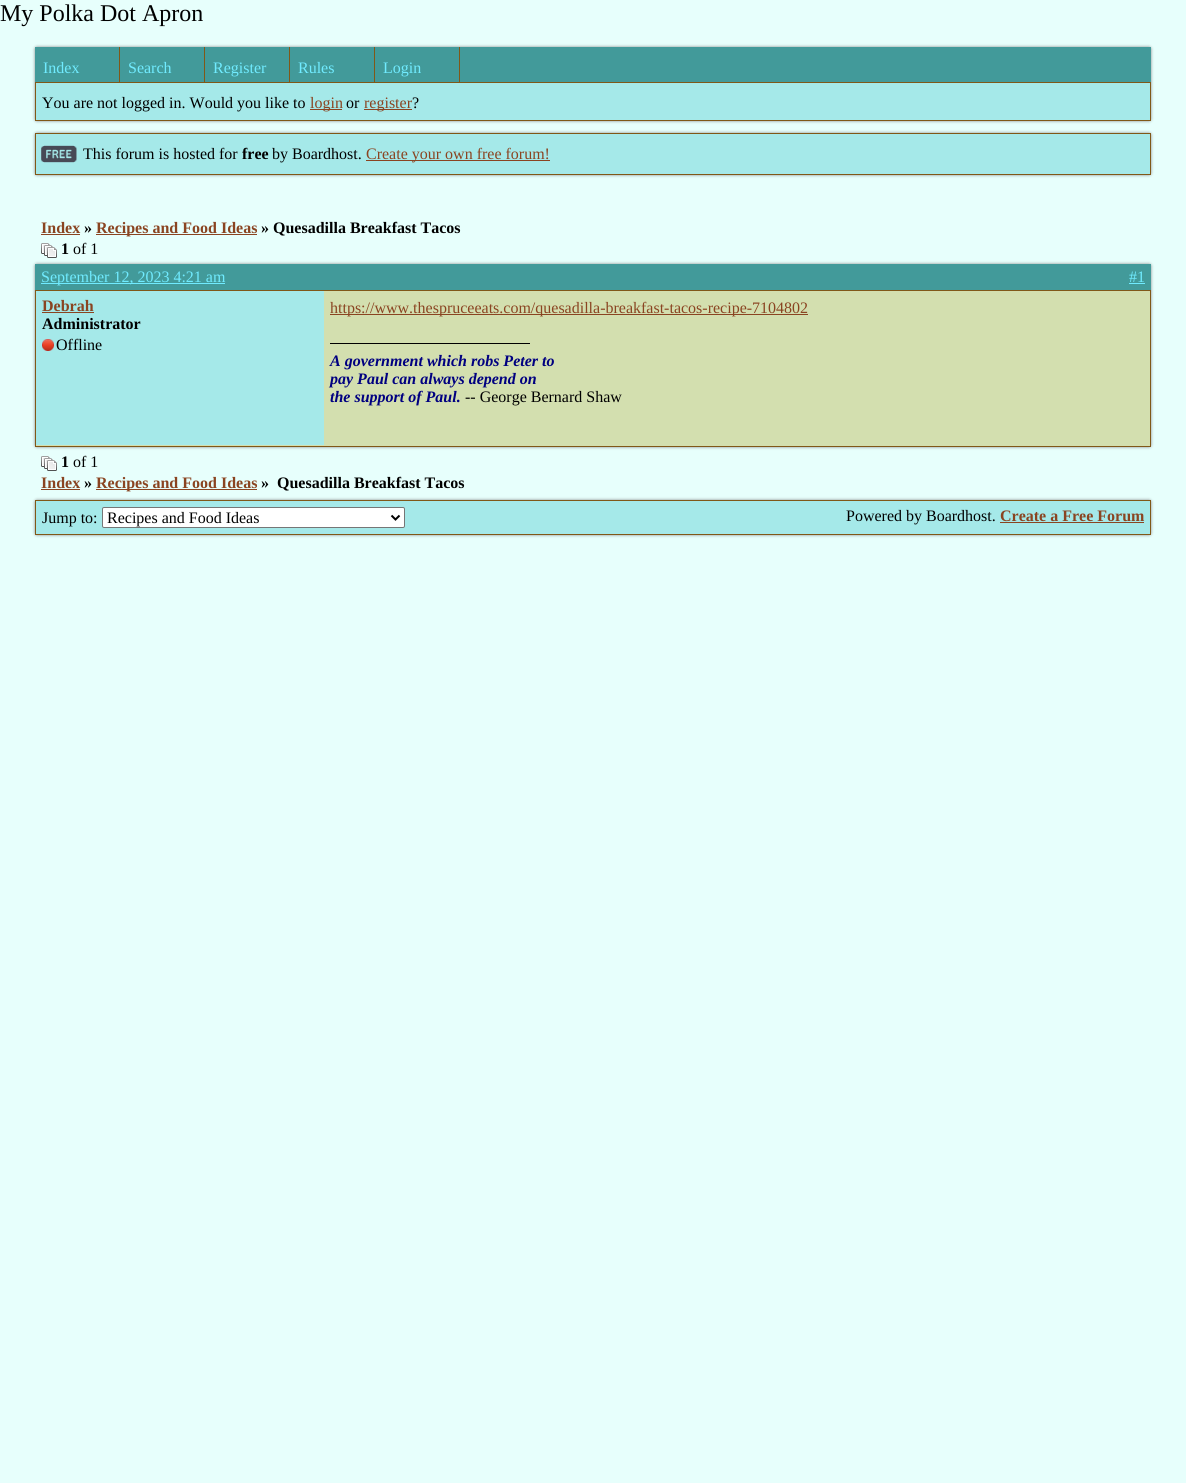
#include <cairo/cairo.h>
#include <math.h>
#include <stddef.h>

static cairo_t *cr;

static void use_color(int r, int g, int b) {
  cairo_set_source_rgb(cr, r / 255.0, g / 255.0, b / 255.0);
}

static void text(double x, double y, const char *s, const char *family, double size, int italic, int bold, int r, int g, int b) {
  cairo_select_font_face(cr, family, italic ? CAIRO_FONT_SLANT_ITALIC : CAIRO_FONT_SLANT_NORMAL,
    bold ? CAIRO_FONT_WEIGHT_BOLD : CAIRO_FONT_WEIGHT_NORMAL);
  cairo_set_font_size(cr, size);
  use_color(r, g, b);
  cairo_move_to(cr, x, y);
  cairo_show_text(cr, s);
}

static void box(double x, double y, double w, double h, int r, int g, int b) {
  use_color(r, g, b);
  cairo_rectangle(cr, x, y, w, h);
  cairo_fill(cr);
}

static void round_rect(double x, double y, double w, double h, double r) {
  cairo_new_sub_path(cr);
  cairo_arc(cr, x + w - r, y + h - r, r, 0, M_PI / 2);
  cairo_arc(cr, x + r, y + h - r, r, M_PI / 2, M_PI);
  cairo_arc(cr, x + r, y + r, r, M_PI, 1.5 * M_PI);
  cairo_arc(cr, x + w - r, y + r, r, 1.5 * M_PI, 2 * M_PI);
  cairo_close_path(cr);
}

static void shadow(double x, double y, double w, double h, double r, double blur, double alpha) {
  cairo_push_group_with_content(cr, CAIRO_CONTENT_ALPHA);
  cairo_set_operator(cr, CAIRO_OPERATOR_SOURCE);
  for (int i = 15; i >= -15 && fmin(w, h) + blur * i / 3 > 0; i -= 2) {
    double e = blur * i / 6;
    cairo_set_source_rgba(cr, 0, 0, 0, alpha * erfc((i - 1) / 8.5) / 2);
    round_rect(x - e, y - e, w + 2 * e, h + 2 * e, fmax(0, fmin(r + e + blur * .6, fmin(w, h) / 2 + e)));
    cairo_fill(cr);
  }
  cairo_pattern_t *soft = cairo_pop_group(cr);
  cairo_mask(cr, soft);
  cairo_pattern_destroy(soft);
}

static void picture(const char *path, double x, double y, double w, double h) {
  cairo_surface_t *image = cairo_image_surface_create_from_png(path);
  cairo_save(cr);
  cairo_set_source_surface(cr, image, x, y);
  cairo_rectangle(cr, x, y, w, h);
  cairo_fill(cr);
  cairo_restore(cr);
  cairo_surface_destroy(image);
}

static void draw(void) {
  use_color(231, 255, 252);
  cairo_paint(cr);
  use_color(136, 136, 136);
  shadow(35, 47, 1116, 74, 2, 1.5, 1);
  box(36, 83, 1114, 37, 165, 233, 233);
  cairo_rectangle(cr, 35.5, 47.5, 1115, 73);
  use_color(128, 88, 24);
  cairo_set_line_width(cr, 1);
  cairo_stroke(cr);
  box(35, 47, 1116, 35, 66, 154, 154);
  box(35, 82, 1116, 1, 128, 88, 24);
  box(119, 47, 1, 35, 128, 88, 24);
  box(204, 47, 1, 35, 128, 88, 24);
  box(289, 47, 1, 35, 128, 88, 24);
  box(374, 47, 1, 35, 128, 88, 24);
  box(459, 47, 1, 35, 128, 88, 24);
  box(310, 109, 32, 1, 138, 68, 33);
  box(364, 109, 48, 1, 138, 68, 33);
  use_color(136, 136, 136);
  shadow(35, 133, 1116, 42, 2, 1.5, 1);
  use_color(165, 233, 233);
  cairo_rectangle(cr, 35.5, 133.5, 1115, 41);
  cairo_fill_preserve(cr);
  use_color(128, 88, 24);
  cairo_stroke(cr);
  picture("img_01.png", 41, 145, 36, 18);
  box(366, 160, 184, 1, 138, 68, 33);
  box(41, 234, 39, 1, 138, 68, 33);
  box(96, 234, 161, 1, 138, 68, 33);
  picture("img_02.png", 41, 243, 16, 15);
  use_color(136, 136, 136);
  shadow(35, 264, 1116, 183, 2, 1.5, 1);
  box(35, 264, 1116, 26, 66, 154, 154);
  box(41, 283, 184, 1, 112, 235, 255);
  box(1129, 283, 16, 1, 112, 235, 255);
  use_color(211, 223, 175);
  cairo_rectangle(cr, 35.5, 290.5, 1115, 156);
  cairo_fill_preserve(cr);
  use_color(128, 88, 24);
  cairo_stroke(cr);
  box(36, 291, 288, 154, 165, 233, 233);
  box(42, 312, 52, 1, 138, 68, 33);
  picture("img_03.png", 42, 339, 12, 12);
  box(330, 314, 478, 1, 138, 68, 33);
  box(330, 343, 200, 1, 0, 0, 0);
  picture("img_02.png", 41, 456, 16, 15);
  box(41, 489, 39, 1, 138, 68, 33);
  box(96, 489, 161, 1, 138, 68, 33);
  use_color(136, 136, 136);
  shadow(35, 500, 1116, 35, 2, 1.5, 1);
  use_color(165, 233, 233);
  cairo_rectangle(cr, 35.5, 500.5, 1115, 34);
  cairo_fill_preserve(cr);
  use_color(128, 88, 24);
  cairo_stroke(cr);
  use_color(255, 255, 255);
  round_rect(102.5, 507.5, 302, 20, 1.5);
  cairo_fill_preserve(cr);
  use_color(118, 118, 118);
  cairo_stroke(cr);
  cairo_new_path(cr);
  cairo_move_to(cr, 391.5, 515.5);
  cairo_line_to(cr, 395.5, 519.5);
  cairo_line_to(cr, 399.5, 515.5);
  use_color(0, 0, 0);
  cairo_set_line_width(cr, 2);
  cairo_stroke(cr);
  box(1000, 522, 144, 1, 138, 68, 33);
  text(0, 21, "My Polka Dot Apron", "Liberation Serif", 24, 0, 0, 0, 0, 0);
  text(43, 73, "Index", "Liberation Serif", 16, 0, 0, 112, 235, 255);
  text(128, 73, "Search", "Liberation Serif", 16, 0, 0, 112, 235, 255);
  text(213, 73, "Register", "Liberation Serif", 16, 0, 0, 112, 235, 255);
  text(298, 73, "Rules", "Liberation Serif", 16, 0, 0, 112, 235, 255);
  text(383, 73, "Login", "Liberation Serif", 16, 0, 0, 112, 235, 255);
  text(42, 108, "You are not logged in. Would you like to", "Liberation Serif", 16, 0, 0, 0, 0, 0);
  text(310, 108, "login", "Liberation Serif", 16, 0, 0, 138, 68, 33);
  text(346, 108, "or", "Liberation Serif", 16, 0, 0, 0, 0, 0);
  text(364, 108, "register", "Liberation Serif", 16, 0, 0, 138, 68, 33);
  text(412, 108, "?", "Liberation Serif", 16, 0, 0, 0, 0, 0);
  text(83, 159, "This forum is hosted for", "Liberation Serif", 16, 0, 0, 0, 0, 0);
  text(242, 159, "free", "Liberation Serif", 16, 0, 1, 0, 0, 0);
  text(272, 159, "by Boardhost.", "Liberation Serif", 16, 0, 0, 0, 0, 0);
  text(366, 159, "Create your own free forum!", "Liberation Serif", 16, 0, 0, 138, 68, 33);
  text(41, 233, "Index", "Liberation Serif", 16, 0, 1, 138, 68, 33);
  text(84, 233, "»", "Liberation Serif", 16, 0, 1, 0, 0, 0);
  text(96, 233, "Recipes and Food Ideas", "Liberation Serif", 16, 0, 1, 138, 68, 33);
  text(261, 233, "» Quesadilla Breakfast Tacos", "Liberation Serif", 16, 0, 1, 0, 0, 0);
  text(61, 254, "1", "Liberation Serif", 16, 0, 1, 0, 0, 0);
  text(73, 254, "of 1", "Liberation Serif", 16, 0, 0, 0, 0, 0);
  text(41, 282, "September 12, 2023 4:21 am", "Liberation Serif", 16, 0, 0, 112, 235, 255);
  text(1129, 282, "#1", "Liberation Serif", 16, 0, 0, 112, 235, 255);
  text(42, 311, "Debrah", "Liberation Serif", 16, 0, 1, 138, 68, 33);
  text(42, 329, "Administrator", "Liberation Serif", 16, 0, 1, 0, 0, 0);
  text(56, 350, "Offline", "Liberation Serif", 16, 0, 0, 0, 0, 0);
  text(330, 313, "https://www.thespruceeats.com/quesadilla-breakfast-tacos-recipe-7104802", "Liberation Serif", 16, 0, 0, 138, 68, 33);
  text(330, 366, "A government which robs Peter to", "Liberation Serif", 16, 1, 1, 0, 0, 128);
  text(330, 384, "pay Paul can always depend on", "Liberation Serif", 16, 1, 1, 0, 0, 128);
  text(330, 402, "the support of Paul.", "Liberation Serif", 16, 1, 1, 0, 0, 128);
  text(465, 402, "-- George Bernard Shaw", "Liberation Serif", 16, 0, 0, 0, 0, 0);
  text(61, 467, "1", "Liberation Serif", 16, 0, 1, 0, 0, 0);
  text(73, 467, "of 1", "Liberation Serif", 16, 0, 0, 0, 0, 0);
  text(41, 488, "Index", "Liberation Serif", 16, 0, 1, 138, 68, 33);
  text(84, 488, "»", "Liberation Serif", 16, 0, 1, 0, 0, 0);
  text(96, 488, "Recipes and Food Ideas", "Liberation Serif", 16, 0, 1, 138, 68, 33);
  text(261, 488, "»", "Liberation Serif", 16, 0, 1, 0, 0, 0);
  text(277, 488, "Quesadilla Breakfast Tacos", "Liberation Serif", 16, 0, 1, 0, 0, 0);
  text(42, 523, "Jump to:", "Liberation Serif", 16, 0, 0, 0, 0, 0);
  text(107, 523, "Recipes and Food Ideas", "Liberation Serif", 16, 0, 0, 0, 0, 0);
  text(846, 521, "Powered by Boardhost.", "Liberation Serif", 16, 0, 0, 0, 0, 0);
  text(1000, 521, "Create a Free Forum", "Liberation Serif", 16, 0, 1, 138, 68, 33);
}

int main(void) {
  cairo_surface_t *surface = cairo_image_surface_create(CAIRO_FORMAT_RGB24, 1186, 1483);
  cr = cairo_create(surface);
  cairo_font_options_t *options = cairo_font_options_create();
  cairo_font_options_set_hint_metrics(options, CAIRO_HINT_METRICS_OFF);
  cairo_font_options_set_hint_style(options, CAIRO_HINT_STYLE_NONE);
  cairo_set_font_options(cr, options);
  cairo_set_miter_limit(cr, 4);
  draw();
  cairo_surface_write_to_png(surface, "out.png");
  cairo_font_options_destroy(options);
  cairo_destroy(cr);
  cairo_surface_destroy(surface);
  return 0;
}
